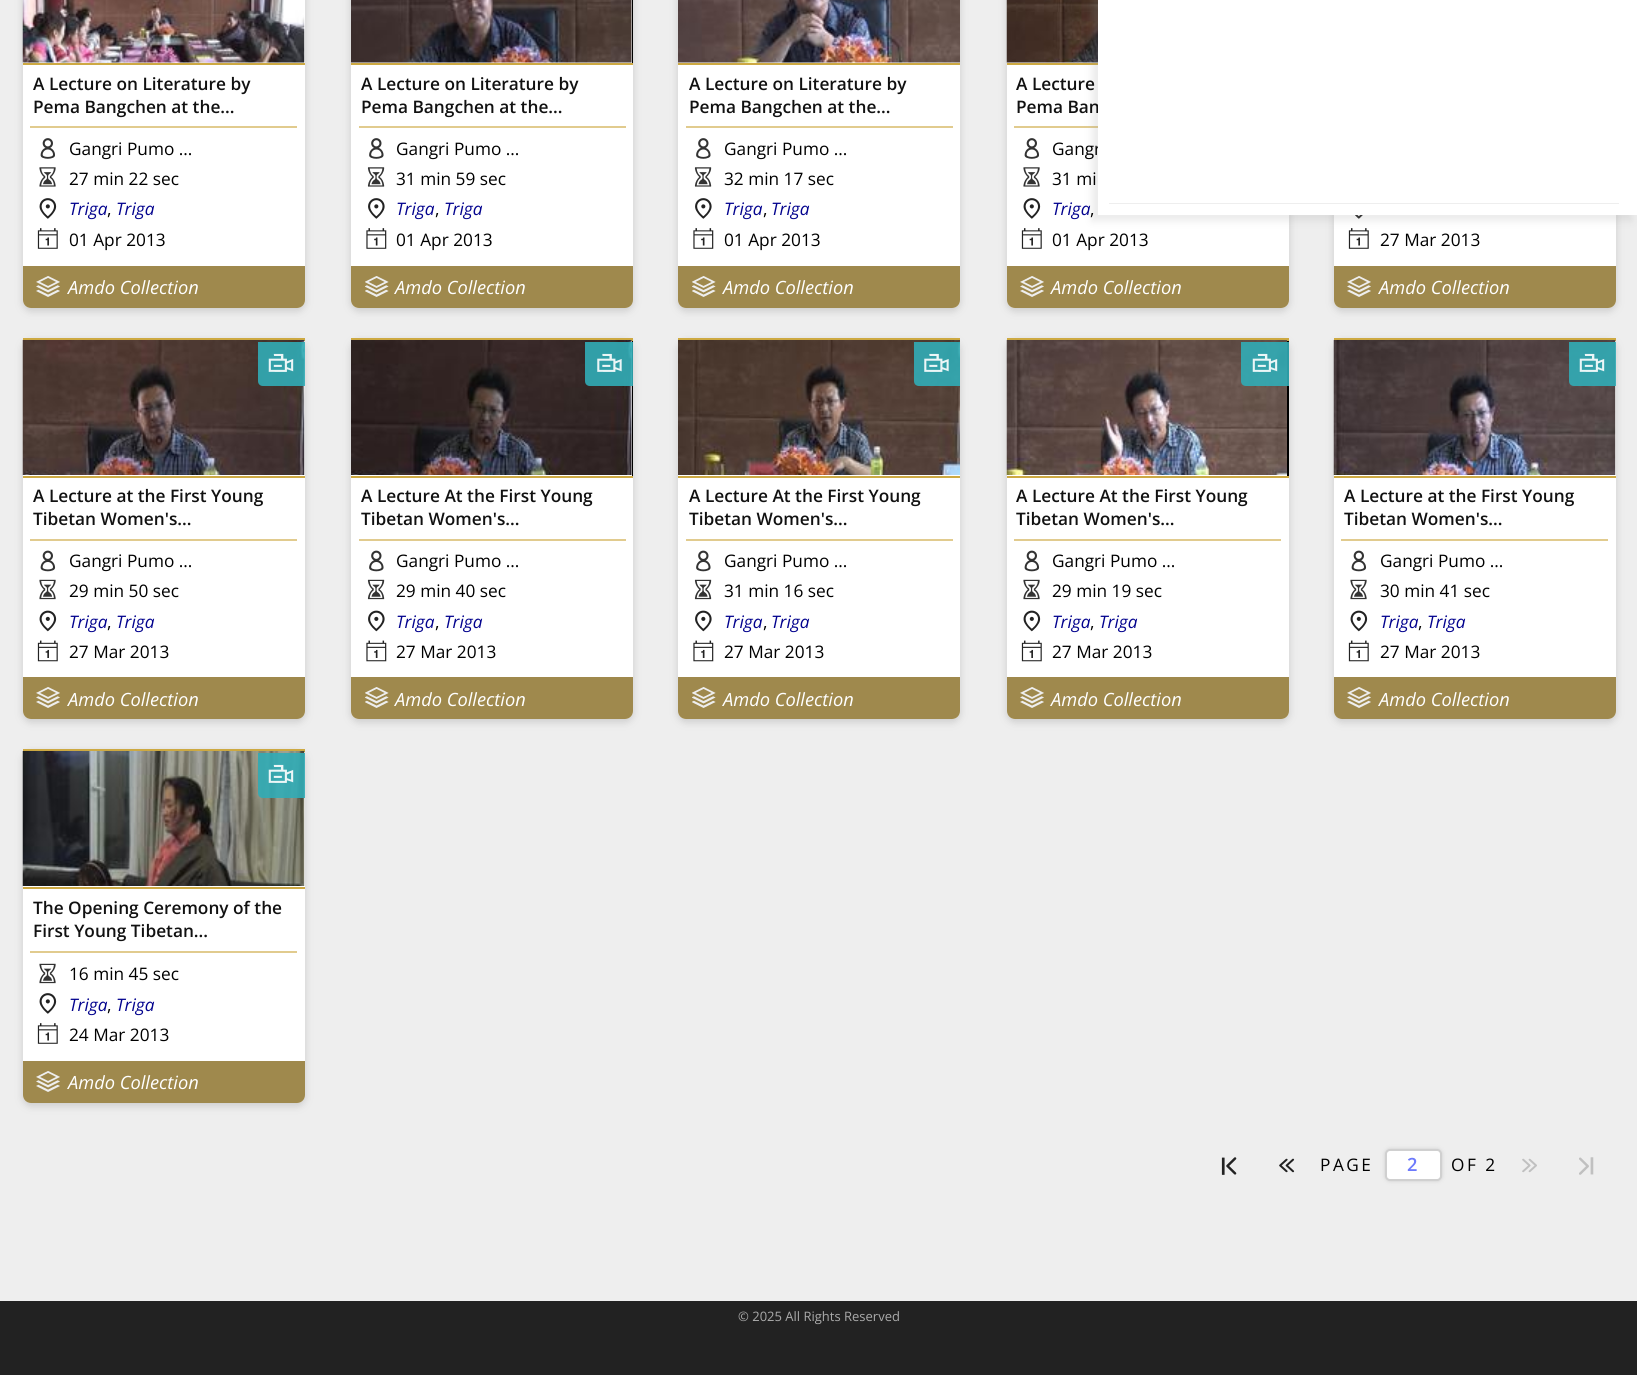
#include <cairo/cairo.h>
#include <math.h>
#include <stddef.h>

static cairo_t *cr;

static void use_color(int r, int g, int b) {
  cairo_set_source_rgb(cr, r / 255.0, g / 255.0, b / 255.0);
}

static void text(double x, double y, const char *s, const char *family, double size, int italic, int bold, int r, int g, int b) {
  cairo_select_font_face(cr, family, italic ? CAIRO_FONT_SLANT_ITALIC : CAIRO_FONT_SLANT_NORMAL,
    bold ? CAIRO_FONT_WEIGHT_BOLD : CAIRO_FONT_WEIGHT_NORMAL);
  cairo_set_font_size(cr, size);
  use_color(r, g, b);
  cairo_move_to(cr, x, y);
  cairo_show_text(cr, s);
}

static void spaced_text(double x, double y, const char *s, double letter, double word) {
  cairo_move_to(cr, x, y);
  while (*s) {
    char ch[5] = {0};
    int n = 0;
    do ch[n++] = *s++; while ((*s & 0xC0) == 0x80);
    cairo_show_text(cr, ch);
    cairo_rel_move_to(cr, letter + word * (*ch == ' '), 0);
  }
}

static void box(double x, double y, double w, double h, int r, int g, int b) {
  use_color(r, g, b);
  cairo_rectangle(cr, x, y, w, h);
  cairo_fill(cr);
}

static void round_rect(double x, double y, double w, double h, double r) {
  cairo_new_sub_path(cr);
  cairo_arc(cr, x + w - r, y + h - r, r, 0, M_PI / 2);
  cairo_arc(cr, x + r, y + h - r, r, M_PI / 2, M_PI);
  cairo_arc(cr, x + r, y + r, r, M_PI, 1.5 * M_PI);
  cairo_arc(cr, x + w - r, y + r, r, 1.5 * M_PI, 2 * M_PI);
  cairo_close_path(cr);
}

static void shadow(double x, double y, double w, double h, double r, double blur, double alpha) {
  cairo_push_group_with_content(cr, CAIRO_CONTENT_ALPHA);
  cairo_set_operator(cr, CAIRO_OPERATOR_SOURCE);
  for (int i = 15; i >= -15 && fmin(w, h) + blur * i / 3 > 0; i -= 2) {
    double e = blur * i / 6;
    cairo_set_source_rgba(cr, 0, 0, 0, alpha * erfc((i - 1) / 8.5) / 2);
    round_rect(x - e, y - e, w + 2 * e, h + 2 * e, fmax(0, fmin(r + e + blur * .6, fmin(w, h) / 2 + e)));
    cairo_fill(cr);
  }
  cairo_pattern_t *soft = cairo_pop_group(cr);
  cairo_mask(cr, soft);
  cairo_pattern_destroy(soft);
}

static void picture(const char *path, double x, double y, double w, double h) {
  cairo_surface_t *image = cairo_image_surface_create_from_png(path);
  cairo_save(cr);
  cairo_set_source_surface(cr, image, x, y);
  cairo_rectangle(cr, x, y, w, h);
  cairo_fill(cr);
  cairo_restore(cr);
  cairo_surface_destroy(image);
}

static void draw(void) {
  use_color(34, 34, 34);
  cairo_paint(cr);
  box(0, 0, 1637, 1301, 238, 238, 238);
  use_color(204, 204, 204);
  shadow(1007, -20, 282, 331, 8, 4, 1);
  use_color(255, 255, 255);
  cairo_new_path(cr);
  cairo_move_to(cr, 1007, -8);
  cairo_line_to(cr, 1289, -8);
  cairo_line_to(cr, 1289, 300);
  cairo_curve_to(cr, 1289, 304.5, 1285.5, 308, 1281, 308);
  cairo_line_to(cr, 1015, 308);
  cairo_curve_to(cr, 1010.5, 308, 1007, 304.5, 1007, 300);
  cairo_close_path(cr);
  cairo_fill(cr);
  picture("img_14.png", 1006, 0, 92, 63);
  box(1007, 63, 91, 2, 205, 169, 66);
  box(1014, 126, 84, 2, 225, 203, 142);
  use_color(204, 204, 204);
  shadow(1334, -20, 282, 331, 8, 4, 1);
  use_color(255, 255, 255);
  cairo_new_path(cr);
  cairo_move_to(cr, 1334, -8);
  cairo_line_to(cr, 1616, -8);
  cairo_line_to(cr, 1616, 300);
  cairo_curve_to(cr, 1616, 304.5, 1612.5, 308, 1608, 308);
  cairo_line_to(cr, 1342, 308);
  cairo_curve_to(cr, 1337.5, 308, 1334, 304.5, 1334, 300);
  cairo_close_path(cr);
  cairo_fill(cr);
  picture("img_15.png", 1355, 215, 8, 4);
  picture("img_05.png", 1348, 228, 21, 21);
  use_color(153, 153, 153);
  shadow(1092, -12, 540, 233, 0, 4, 0.2);
  box(1619, 0, 18, 204, 255, 255, 255);
  box(1109, 204, 528, 11, 255, 255, 255);
  box(1109, 203, 510, 1, 221, 221, 221);
  box(1109, 0, 510, 203, 255, 255, 255);
  cairo_set_source_rgba(cr, 1, 1, 1, 0.5);
  cairo_rectangle(cr, 1109, 203, 510, 1);
  cairo_fill(cr);
  use_color(204, 204, 204);
  shadow(23, -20, 282, 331, 8, 4, 1);
  use_color(255, 255, 255);
  cairo_new_path(cr);
  cairo_move_to(cr, 23, -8);
  cairo_line_to(cr, 305, -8);
  cairo_line_to(cr, 305, 300);
  cairo_curve_to(cr, 305, 304.5, 301.5, 308, 297, 308);
  cairo_line_to(cr, 31, 308);
  cairo_curve_to(cr, 26.5, 308, 23, 304.5, 23, 300);
  cairo_close_path(cr);
  cairo_fill(cr);
  picture("img_01.png", 22, 0, 283, 63);
  box(23, 63, 282, 2, 205, 169, 66);
  box(30, 126, 267, 2, 225, 203, 142);
  picture("img_02.png", 40, 138, 15, 21);
  picture("img_03.png", 39, 167, 17, 20);
  picture("img_04.png", 39, 198, 18, 21);
  picture("img_05.png", 37, 228, 21, 21);
  cairo_set_source_rgba(cr, 0.557, 0.459, 0.18, 0.85);
  cairo_new_path(cr);
  cairo_move_to(cr, 23, 266);
  cairo_line_to(cr, 305, 266);
  cairo_line_to(cr, 305, 300);
  cairo_curve_to(cr, 305, 304.5, 301.5, 308, 297, 308);
  cairo_line_to(cr, 31, 308);
  cairo_curve_to(cr, 26.5, 308, 23, 304.5, 23, 300);
  cairo_close_path(cr);
  cairo_fill(cr);
  picture("img_06.png", 36, 276, 24, 21);
  use_color(204, 204, 204);
  shadow(351, -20, 282, 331, 8, 4, 1);
  use_color(255, 255, 255);
  cairo_new_path(cr);
  cairo_move_to(cr, 351, -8);
  cairo_line_to(cr, 633, -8);
  cairo_line_to(cr, 633, 300);
  cairo_curve_to(cr, 633, 304.5, 629.5, 308, 625, 308);
  cairo_line_to(cr, 359, 308);
  cairo_curve_to(cr, 354.5, 308, 351, 304.5, 351, 300);
  cairo_close_path(cr);
  cairo_fill(cr);
  box(632, 0, 1, 63, 0, 0, 0);
  picture("img_07.png", 351, 0, 281, 63);
  box(351, 63, 282, 2, 205, 169, 66);
  box(359, 126, 267, 2, 225, 203, 142);
  picture("img_08.png", 369, 138, 15, 21);
  picture("img_09.png", 367, 167, 18, 20);
  picture("img_10.png", 368, 198, 17, 21);
  picture("img_11.png", 366, 228, 21, 21);
  cairo_set_source_rgba(cr, 0.557, 0.459, 0.18, 0.85);
  cairo_new_path(cr);
  cairo_move_to(cr, 351, 266);
  cairo_line_to(cr, 633, 266);
  cairo_line_to(cr, 633, 300);
  cairo_curve_to(cr, 633, 304.5, 629.5, 308, 625, 308);
  cairo_line_to(cr, 359, 308);
  cairo_curve_to(cr, 354.5, 308, 351, 304.5, 351, 300);
  cairo_close_path(cr);
  cairo_fill(cr);
  picture("img_12.png", 365, 276, 24, 21);
  use_color(204, 204, 204);
  shadow(678, -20, 282, 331, 8, 4, 1);
  use_color(255, 255, 255);
  cairo_new_path(cr);
  cairo_move_to(cr, 678, -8);
  cairo_line_to(cr, 960, -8);
  cairo_line_to(cr, 960, 300);
  cairo_curve_to(cr, 960, 304.5, 956.5, 308, 952, 308);
  cairo_line_to(cr, 686, 308);
  cairo_curve_to(cr, 681.5, 308, 678, 304.5, 678, 300);
  cairo_close_path(cr);
  cairo_fill(cr);
  picture("img_13.png", 678, 0, 282, 63);
  box(678, 63, 282, 2, 205, 169, 66);
  box(686, 126, 267, 2, 225, 203, 142);
  picture("img_08.png", 696, 138, 15, 21);
  picture("img_09.png", 694, 167, 18, 20);
  picture("img_10.png", 695, 198, 17, 21);
  picture("img_11.png", 693, 228, 21, 21);
  cairo_set_source_rgba(cr, 0.557, 0.459, 0.18, 0.85);
  cairo_new_path(cr);
  cairo_move_to(cr, 678, 266);
  cairo_line_to(cr, 960, 266);
  cairo_line_to(cr, 960, 300);
  cairo_curve_to(cr, 960, 304.5, 956.5, 308, 952, 308);
  cairo_line_to(cr, 686, 308);
  cairo_curve_to(cr, 681.5, 308, 678, 304.5, 678, 300);
  cairo_close_path(cr);
  cairo_fill(cr);
  picture("img_12.png", 692, 276, 24, 21);
  picture("img_02.png", 1024, 138, 15, 21);
  picture("img_03.png", 1023, 167, 17, 20);
  picture("img_04.png", 1023, 198, 18, 21);
  picture("img_05.png", 1021, 228, 21, 21);
  cairo_new_path(cr);
  cairo_move_to(cr, 1007, 266);
  cairo_line_to(cr, 1289, 266);
  cairo_line_to(cr, 1289, 300);
  cairo_curve_to(cr, 1289, 304.5, 1285.5, 308, 1281, 308);
  cairo_line_to(cr, 1015, 308);
  cairo_curve_to(cr, 1010.5, 308, 1007, 304.5, 1007, 300);
  cairo_close_path(cr);
  cairo_fill(cr);
  picture("img_06.png", 1020, 276, 24, 21);
  cairo_new_path(cr);
  cairo_move_to(cr, 1334, 266);
  cairo_line_to(cr, 1616, 266);
  cairo_line_to(cr, 1616, 300);
  cairo_curve_to(cr, 1616, 304.5, 1612.5, 308, 1608, 308);
  cairo_line_to(cr, 1342, 308);
  cairo_curve_to(cr, 1337.5, 308, 1334, 304.5, 1334, 300);
  cairo_close_path(cr);
  cairo_fill(cr);
  picture("img_06.png", 1347, 276, 24, 21);
  use_color(204, 204, 204);
  shadow(23, 341, 282, 381, 8, 4, 1);
  use_color(255, 255, 255);
  cairo_new_path(cr);
  cairo_move_to(cr, 23, 341);
  cairo_line_to(cr, 305, 341);
  cairo_line_to(cr, 305, 711);
  cairo_curve_to(cr, 305, 715.5, 301.5, 719, 297, 719);
  cairo_line_to(cr, 31, 719);
  cairo_curve_to(cr, 26.5, 719, 23, 715.5, 23, 711);
  cairo_close_path(cr);
  cairo_fill(cr);
  box(23, 338, 282, 3, 205, 169, 66);
  picture("img_16.png", 22, 340, 283, 135);
  cairo_set_source_rgba(cr, 0.192, 0.675, 0.714, 0.9);
  cairo_new_path(cr);
  cairo_move_to(cr, 258, 342);
  cairo_line_to(cr, 305, 342);
  cairo_line_to(cr, 305, 386);
  cairo_line_to(cr, 263, 386);
  cairo_curve_to(cr, 260, 386, 258, 384, 258, 381);
  cairo_close_path(cr);
  cairo_fill(cr);
  picture("img_17.png", 268, 353, 26, 19);
  box(23, 476, 282, 2, 205, 169, 66);
  box(30, 539, 267, 2, 225, 203, 142);
  picture("img_18.png", 40, 550, 16, 22);
  picture("img_19.png", 39, 579, 17, 21);
  picture("img_20.png", 39, 610, 18, 22);
  picture("img_21.png", 37, 640, 21, 22);
  cairo_set_source_rgba(cr, 0.557, 0.459, 0.18, 0.85);
  cairo_new_path(cr);
  cairo_move_to(cr, 23, 677);
  cairo_line_to(cr, 305, 677);
  cairo_line_to(cr, 305, 711);
  cairo_curve_to(cr, 305, 715.5, 301.5, 719, 297, 719);
  cairo_line_to(cr, 31, 719);
  cairo_curve_to(cr, 26.5, 719, 23, 715.5, 23, 711);
  cairo_close_path(cr);
  cairo_fill(cr);
  picture("img_06.png", 36, 687, 24, 21);
  use_color(204, 204, 204);
  shadow(351, 341, 282, 381, 8, 4, 1);
  use_color(255, 255, 255);
  cairo_new_path(cr);
  cairo_move_to(cr, 351, 341);
  cairo_line_to(cr, 633, 341);
  cairo_line_to(cr, 633, 711);
  cairo_curve_to(cr, 633, 715.5, 629.5, 719, 625, 719);
  cairo_line_to(cr, 359, 719);
  cairo_curve_to(cr, 354.5, 719, 351, 715.5, 351, 711);
  cairo_close_path(cr);
  cairo_fill(cr);
  box(351, 338, 282, 3, 205, 169, 66);
  box(632, 341, 1, 135, 0, 0, 0);
  picture("img_22.png", 351, 340, 281, 135);
  cairo_set_source_rgba(cr, 0.192, 0.675, 0.714, 0.9);
  cairo_new_path(cr);
  cairo_move_to(cr, 585, 342);
  cairo_line_to(cr, 633, 342);
  cairo_line_to(cr, 633, 386);
  cairo_line_to(cr, 590, 386);
  cairo_curve_to(cr, 587, 386, 585, 384, 585, 381);
  cairo_close_path(cr);
  cairo_fill(cr);
  picture("img_23.png", 597, 353, 25, 19);
  box(351, 476, 282, 2, 205, 169, 66);
  box(359, 539, 267, 2, 225, 203, 142);
  picture("img_24.png", 369, 550, 15, 22);
  picture("img_25.png", 367, 579, 18, 21);
  picture("img_26.png", 368, 610, 17, 22);
  picture("img_27.png", 366, 640, 21, 22);
  cairo_set_source_rgba(cr, 0.557, 0.459, 0.18, 0.85);
  cairo_new_path(cr);
  cairo_move_to(cr, 351, 677);
  cairo_line_to(cr, 633, 677);
  cairo_line_to(cr, 633, 711);
  cairo_curve_to(cr, 633, 715.5, 629.5, 719, 625, 719);
  cairo_line_to(cr, 359, 719);
  cairo_curve_to(cr, 354.5, 719, 351, 715.5, 351, 711);
  cairo_close_path(cr);
  cairo_fill(cr);
  picture("img_12.png", 365, 687, 24, 21);
  use_color(204, 204, 204);
  shadow(678, 341, 282, 381, 8, 4, 1);
  use_color(255, 255, 255);
  cairo_new_path(cr);
  cairo_move_to(cr, 678, 341);
  cairo_line_to(cr, 960, 341);
  cairo_line_to(cr, 960, 711);
  cairo_curve_to(cr, 960, 715.5, 956.5, 719, 952, 719);
  cairo_line_to(cr, 686, 719);
  cairo_curve_to(cr, 681.5, 719, 678, 715.5, 678, 711);
  cairo_close_path(cr);
  cairo_fill(cr);
  box(678, 338, 282, 2, 205, 169, 66);
  picture("img_28.png", 678, 340, 282, 135);
  cairo_set_source_rgba(cr, 0.192, 0.675, 0.714, 0.9);
  cairo_new_path(cr);
  cairo_move_to(cr, 914, 342);
  cairo_line_to(cr, 960, 342);
  cairo_line_to(cr, 960, 386);
  cairo_line_to(cr, 919, 386);
  cairo_curve_to(cr, 916, 386, 914, 384, 914, 381);
  cairo_close_path(cr);
  cairo_fill(cr);
  picture("img_29.png", 924, 353, 25, 19);
  box(678, 476, 282, 2, 205, 169, 66);
  box(686, 539, 267, 2, 225, 203, 142);
  picture("img_24.png", 696, 550, 15, 22);
  picture("img_25.png", 694, 579, 18, 21);
  picture("img_26.png", 695, 610, 17, 22);
  picture("img_27.png", 693, 640, 21, 22);
  cairo_set_source_rgba(cr, 0.557, 0.459, 0.18, 0.85);
  cairo_new_path(cr);
  cairo_move_to(cr, 678, 677);
  cairo_line_to(cr, 960, 677);
  cairo_line_to(cr, 960, 711);
  cairo_curve_to(cr, 960, 715.5, 956.5, 719, 952, 719);
  cairo_line_to(cr, 686, 719);
  cairo_curve_to(cr, 681.5, 719, 678, 715.5, 678, 711);
  cairo_close_path(cr);
  cairo_fill(cr);
  picture("img_12.png", 692, 687, 24, 21);
  use_color(204, 204, 204);
  shadow(1007, 341, 282, 381, 8, 4, 1);
  use_color(255, 255, 255);
  cairo_new_path(cr);
  cairo_move_to(cr, 1007, 341);
  cairo_line_to(cr, 1289, 341);
  cairo_line_to(cr, 1289, 711);
  cairo_curve_to(cr, 1289, 715.5, 1285.5, 719, 1281, 719);
  cairo_line_to(cr, 1015, 719);
  cairo_curve_to(cr, 1010.5, 719, 1007, 715.5, 1007, 711);
  cairo_close_path(cr);
  cairo_fill(cr);
  box(1007, 338, 282, 3, 205, 169, 66);
  box(1287, 341, 2, 135, 0, 0, 0);
  picture("img_30.png", 1006, 340, 281, 135);
  cairo_set_source_rgba(cr, 0.192, 0.675, 0.714, 0.9);
  cairo_new_path(cr);
  cairo_move_to(cr, 1241, 342);
  cairo_line_to(cr, 1289, 342);
  cairo_line_to(cr, 1289, 386);
  cairo_line_to(cr, 1246, 386);
  cairo_curve_to(cr, 1243, 386, 1241, 384, 1241, 381);
  cairo_close_path(cr);
  cairo_fill(cr);
  picture("img_31.png", 1252, 353, 26, 19);
  box(1007, 476, 282, 2, 205, 169, 66);
  box(1014, 539, 267, 2, 225, 203, 142);
  picture("img_18.png", 1024, 550, 16, 22);
  picture("img_19.png", 1023, 579, 17, 21);
  picture("img_20.png", 1023, 610, 18, 22);
  picture("img_21.png", 1021, 640, 21, 22);
  cairo_set_source_rgba(cr, 0.557, 0.459, 0.18, 0.85);
  cairo_new_path(cr);
  cairo_move_to(cr, 1007, 677);
  cairo_line_to(cr, 1289, 677);
  cairo_line_to(cr, 1289, 711);
  cairo_curve_to(cr, 1289, 715.5, 1285.5, 719, 1281, 719);
  cairo_line_to(cr, 1015, 719);
  cairo_curve_to(cr, 1010.5, 719, 1007, 715.5, 1007, 711);
  cairo_close_path(cr);
  cairo_fill(cr);
  picture("img_06.png", 1020, 687, 24, 21);
  use_color(204, 204, 204);
  shadow(1334, 341, 282, 381, 8, 4, 1);
  use_color(255, 255, 255);
  cairo_new_path(cr);
  cairo_move_to(cr, 1334, 341);
  cairo_line_to(cr, 1616, 341);
  cairo_line_to(cr, 1616, 711);
  cairo_curve_to(cr, 1616, 715.5, 1612.5, 719, 1608, 719);
  cairo_line_to(cr, 1342, 719);
  cairo_curve_to(cr, 1337.5, 719, 1334, 715.5, 1334, 711);
  cairo_close_path(cr);
  cairo_fill(cr);
  box(1334, 338, 282, 3, 205, 169, 66);
  picture("img_32.png", 1333, 340, 283, 135);
  cairo_set_source_rgba(cr, 0.192, 0.675, 0.714, 0.9);
  cairo_new_path(cr);
  cairo_move_to(cr, 1569, 342);
  cairo_line_to(cr, 1616, 342);
  cairo_line_to(cr, 1616, 386);
  cairo_line_to(cr, 1574, 386);
  cairo_curve_to(cr, 1571, 386, 1569, 384, 1569, 381);
  cairo_close_path(cr);
  cairo_fill(cr);
  picture("img_33.png", 1579, 353, 26, 19);
  box(1334, 476, 282, 2, 205, 169, 66);
  box(1341, 539, 267, 2, 225, 203, 142);
  picture("img_18.png", 1351, 550, 16, 22);
  picture("img_19.png", 1350, 579, 17, 21);
  picture("img_20.png", 1350, 610, 18, 22);
  picture("img_21.png", 1348, 640, 21, 22);
  cairo_set_source_rgba(cr, 0.557, 0.459, 0.18, 0.85);
  cairo_new_path(cr);
  cairo_move_to(cr, 1334, 677);
  cairo_line_to(cr, 1616, 677);
  cairo_line_to(cr, 1616, 711);
  cairo_curve_to(cr, 1616, 715.5, 1612.5, 719, 1608, 719);
  cairo_line_to(cr, 1342, 719);
  cairo_curve_to(cr, 1337.5, 719, 1334, 715.5, 1334, 711);
  cairo_close_path(cr);
  cairo_fill(cr);
  picture("img_06.png", 1347, 687, 24, 21);
  use_color(204, 204, 204);
  shadow(23, 752, 282, 354, 8, 4, 1);
  use_color(255, 255, 255);
  cairo_new_path(cr);
  cairo_move_to(cr, 23, 752);
  cairo_line_to(cr, 305, 752);
  cairo_line_to(cr, 305, 1095);
  cairo_curve_to(cr, 305, 1099.5, 301.5, 1103, 297, 1103);
  cairo_line_to(cr, 31, 1103);
  cairo_curve_to(cr, 26.5, 1103, 23, 1099.5, 23, 1095);
  cairo_close_path(cr);
  cairo_fill(cr);
  box(23, 749, 282, 3, 205, 169, 66);
  picture("img_34.png", 22, 751, 283, 135);
  cairo_set_source_rgba(cr, 0.192, 0.675, 0.714, 0.9);
  cairo_new_path(cr);
  cairo_move_to(cr, 258, 753);
  cairo_line_to(cr, 305, 753);
  cairo_line_to(cr, 305, 798);
  cairo_line_to(cr, 263, 798);
  cairo_curve_to(cr, 260, 798, 258, 796, 258, 793);
  cairo_close_path(cr);
  cairo_fill(cr);
  picture("img_35.png", 268, 764, 26, 19);
  box(23, 887, 282, 2, 205, 169, 66);
  box(30, 951, 267, 2, 225, 203, 142);
  picture("img_19.png", 39, 963, 17, 21);
  picture("img_04.png", 39, 993, 18, 21);
  picture("img_05.png", 37, 1023, 21, 21);
  cairo_set_source_rgba(cr, 0.557, 0.459, 0.18, 0.85);
  cairo_new_path(cr);
  cairo_move_to(cr, 23, 1061);
  cairo_line_to(cr, 305, 1061);
  cairo_line_to(cr, 305, 1095);
  cairo_curve_to(cr, 305, 1099.5, 301.5, 1103, 297, 1103);
  cairo_line_to(cr, 31, 1103);
  cairo_curve_to(cr, 26.5, 1103, 23, 1099.5, 23, 1095);
  cairo_close_path(cr);
  cairo_fill(cr);
  picture("img_06.png", 36, 1071, 24, 21);
  picture("img_36.png", 1221, 1157, 16, 18);
  picture("img_37.png", 1279, 1158, 16, 15);
  use_color(204, 204, 204);
  shadow(1385, 1149, 57, 32, 5, 2, 1);
  use_color(255, 255, 255);
  round_rect(1386, 1150, 55, 30, 4);
  cairo_fill_preserve(cr);
  use_color(208, 208, 208);
  cairo_stroke(cr);
  picture("img_38.png", 1522, 1158, 15, 15);
  picture("img_39.png", 1579, 1157, 15, 18);
  text(33, 90, "A Lecture on Literature by", "Open Sans SemiBold", 17.25, 0, 0, 17, 17, 17);
  text(33, 113, "Pema Bangchen at the...", "Open Sans SemiBold", 17.25, 0, 0, 17, 17, 17);
  text(69, 155, "Gangri Pumo ...", "Open Sans", 17.25, 0, 0, 0, 0, 0);
  text(69, 185, "27 min 22 sec", "Open Sans", 17.25, 0, 0, 0, 0, 0);
  text(69, 215, "Triga", "Open Sans", 17.25, 1, 0, 3, 3, 142);
  text(107, 215, ",", "Open Sans", 17.25, 0, 0, 0, 0, 0);
  text(116, 215, "Triga", "Open Sans", 17.25, 1, 0, 3, 3, 142);
  text(69, 246, "01 Apr 2013", "Open Sans", 17.25, 0, 0, 0, 0, 0);
  text(68, 294, "Amdo Collection", "Open Sans", 18.25, 1, 0, 255, 255, 255);
  text(361, 90, "A Lecture on Literature by", "Open Sans SemiBold", 17.25, 0, 0, 17, 17, 17);
  text(361, 113, "Pema Bangchen at the...", "Open Sans SemiBold", 17.25, 0, 0, 17, 17, 17);
  text(396, 155, "Gangri Pumo ...", "Open Sans", 17.25, 0, 0, 0, 0, 0);
  text(396, 185, "31 min 59 sec", "Open Sans", 17.25, 0, 0, 0, 0, 0);
  text(396, 215, "Triga", "Open Sans", 17.25, 1, 0, 3, 3, 142);
  text(435, 215, ",", "Open Sans", 17.25, 0, 0, 0, 0, 0);
  text(444, 215, "Triga", "Open Sans", 17.25, 1, 0, 3, 3, 142);
  text(396, 246, "01 Apr 2013", "Open Sans", 17.25, 0, 0, 0, 0, 0);
  text(395, 294, "Amdo Collection", "Open Sans", 18.25, 1, 0, 255, 255, 255);
  text(689, 90, "A Lecture on Literature by", "Open Sans SemiBold", 17.25, 0, 0, 17, 17, 17);
  text(689, 113, "Pema Bangchen at the...", "Open Sans SemiBold", 17.25, 0, 0, 17, 17, 17);
  text(724, 155, "Gangri Pumo ...", "Open Sans", 17.25, 0, 0, 0, 0, 0);
  text(724, 185, "32 min 17 sec", "Open Sans", 17.25, 0, 0, 0, 0, 0);
  text(724, 215, "Triga", "Open Sans", 17.25, 1, 0, 3, 3, 142);
  text(763, 215, ",", "Open Sans", 17.25, 0, 0, 0, 0, 0);
  text(771, 215, "Triga", "Open Sans", 17.25, 1, 0, 3, 3, 142);
  text(724, 246, "01 Apr 2013", "Open Sans", 17.25, 0, 0, 0, 0, 0);
  text(723, 294, "Amdo Collection", "Open Sans", 18.25, 1, 0, 255, 255, 255);
  text(1016, 90, "A Lecture", "Open Sans SemiBold", 17.25, 0, 0, 17, 17, 17);
  text(1016, 113, "Pema Ban", "Open Sans SemiBold", 17.25, 0, 0, 17, 17, 17);
  text(1052, 155, "Gangr", "Open Sans", 17.25, 0, 0, 0, 0, 0);
  box(1098, 0, 11, 215, 255, 255, 255);
  text(1052, 185, "31 mi", "Open Sans", 17.25, 0, 0, 0, 0, 0);
  text(1052, 215, "Triga", "Open Sans", 17.25, 1, 0, 3, 3, 142);
  text(1090, 215, ",", "Open Sans", 17.25, 0, 0, 0, 0, 0);
  text(1052, 246, "01 Apr 2013", "Open Sans", 17.25, 0, 0, 0, 0, 0);
  text(1051, 294, "Amdo Collection", "Open Sans", 18.25, 1, 0, 255, 255, 255);
  text(1380, 246, "27 Mar 2013", "Open Sans", 17.25, 0, 0, 0, 0, 0);
  text(1379, 294, "Amdo Collection", "Open Sans", 18.25, 1, 0, 255, 255, 255);
  text(33, 502, "A Lecture at the First Young", "Open Sans SemiBold", 17.25, 0, 0, 17, 17, 17);
  text(33, 525, "Tibetan Women's...", "Open Sans SemiBold", 17.25, 0, 0, 17, 17, 17);
  text(69, 567, "Gangri Pumo ...", "Open Sans", 17.25, 0, 0, 0, 0, 0);
  text(69, 597, "29 min 50 sec", "Open Sans", 17.25, 0, 0, 0, 0, 0);
  text(69, 628, "Triga", "Open Sans", 17.25, 1, 0, 3, 3, 142);
  text(107, 628, ",", "Open Sans", 17.25, 0, 0, 0, 0, 0);
  text(116, 628, "Triga", "Open Sans", 17.25, 1, 0, 3, 3, 142);
  text(69, 658, "27 Mar 2013", "Open Sans", 17.25, 0, 0, 0, 0, 0);
  text(68, 706, "Amdo Collection", "Open Sans", 18.25, 1, 0, 255, 255, 255);
  text(361, 502, "A Lecture At the First Young", "Open Sans SemiBold", 17.25, 0, 0, 17, 17, 17);
  text(361, 525, "Tibetan Women's...", "Open Sans SemiBold", 17.25, 0, 0, 17, 17, 17);
  text(396, 567, "Gangri Pumo ...", "Open Sans", 17.25, 0, 0, 0, 0, 0);
  text(396, 597, "29 min 40 sec", "Open Sans", 17.25, 0, 0, 0, 0, 0);
  text(396, 628, "Triga", "Open Sans", 17.25, 1, 0, 3, 3, 142);
  text(435, 628, ",", "Open Sans", 17.25, 0, 0, 0, 0, 0);
  text(444, 628, "Triga", "Open Sans", 17.25, 1, 0, 3, 3, 142);
  text(396, 658, "27 Mar 2013", "Open Sans", 17.25, 0, 0, 0, 0, 0);
  text(395, 706, "Amdo Collection", "Open Sans", 18.25, 1, 0, 255, 255, 255);
  text(689, 502, "A Lecture At the First Young", "Open Sans SemiBold", 17.25, 0, 0, 17, 17, 17);
  text(689, 525, "Tibetan Women's...", "Open Sans SemiBold", 17.25, 0, 0, 17, 17, 17);
  text(724, 567, "Gangri Pumo ...", "Open Sans", 17.25, 0, 0, 0, 0, 0);
  text(724, 597, "31 min 16 sec", "Open Sans", 17.25, 0, 0, 0, 0, 0);
  text(724, 628, "Triga", "Open Sans", 17.25, 1, 0, 3, 3, 142);
  text(763, 628, ",", "Open Sans", 17.25, 0, 0, 0, 0, 0);
  text(771, 628, "Triga", "Open Sans", 17.25, 1, 0, 3, 3, 142);
  text(724, 658, "27 Mar 2013", "Open Sans", 17.25, 0, 0, 0, 0, 0);
  text(723, 706, "Amdo Collection", "Open Sans", 18.25, 1, 0, 255, 255, 255);
  text(1016, 502, "A Lecture At the First Young", "Open Sans SemiBold", 17.25, 0, 0, 17, 17, 17);
  text(1016, 525, "Tibetan Women's...", "Open Sans SemiBold", 17.25, 0, 0, 17, 17, 17);
  text(1052, 567, "Gangri Pumo ...", "Open Sans", 17.25, 0, 0, 0, 0, 0);
  text(1052, 597, "29 min 19 sec", "Open Sans", 17.25, 0, 0, 0, 0, 0);
  text(1052, 628, "Triga", "Open Sans", 17.25, 1, 0, 3, 3, 142);
  text(1090, 628, ",", "Open Sans", 17.25, 0, 0, 0, 0, 0);
  text(1099, 628, "Triga", "Open Sans", 17.25, 1, 0, 3, 3, 142);
  text(1052, 658, "27 Mar 2013", "Open Sans", 17.25, 0, 0, 0, 0, 0);
  text(1051, 706, "Amdo Collection", "Open Sans", 18.25, 1, 0, 255, 255, 255);
  text(1344, 502, "A Lecture at the First Young", "Open Sans SemiBold", 17.25, 0, 0, 17, 17, 17);
  text(1344, 525, "Tibetan Women's...", "Open Sans SemiBold", 17.25, 0, 0, 17, 17, 17);
  text(1380, 567, "Gangri Pumo ...", "Open Sans", 17.25, 0, 0, 0, 0, 0);
  text(1380, 597, "30 min 41 sec", "Open Sans", 17.25, 0, 0, 0, 0, 0);
  text(1380, 628, "Triga", "Open Sans", 17.25, 1, 0, 3, 3, 142);
  text(1418, 628, ",", "Open Sans", 17.25, 0, 0, 0, 0, 0);
  text(1427, 628, "Triga", "Open Sans", 17.25, 1, 0, 3, 3, 142);
  text(1380, 658, "27 Mar 2013", "Open Sans", 17.25, 0, 0, 0, 0, 0);
  text(1379, 706, "Amdo Collection", "Open Sans", 18.25, 1, 0, 255, 255, 255);
  text(33, 914, "The Opening Ceremony of the", "Open Sans SemiBold", 17.25, 0, 0, 17, 17, 17);
  text(33, 937, "First Young Tibetan...", "Open Sans SemiBold", 17.25, 0, 0, 17, 17, 17);
  text(69, 980, "16 min 45 sec", "Open Sans", 17.25, 0, 0, 0, 0, 0);
  text(69, 1011, "Triga", "Open Sans", 17.25, 1, 0, 3, 3, 142);
  text(107, 1011, ",", "Open Sans", 17.25, 0, 0, 0, 0, 0);
  text(116, 1011, "Triga", "Open Sans", 17.25, 1, 0, 3, 3, 142);
  text(69, 1041, "24 Mar 2013", "Open Sans", 17.25, 0, 0, 0, 0, 0);
  text(68, 1089, "Amdo Collection", "Open Sans", 18.25, 1, 0, 255, 255, 255);
  cairo_select_font_face(cr, "Open Sans", CAIRO_FONT_SLANT_NORMAL, CAIRO_FONT_WEIGHT_NORMAL);
  cairo_set_font_size(cr, 17.25);
  use_color(0, 0, 0);
  spaced_text(1320, 1171, "PAGE", 2.5, 0);
  text(1407, 1171, "2", "Open Sans SemiBold", 18.25, 0, 0, 109, 122, 252);
  cairo_select_font_face(cr, "Open Sans", CAIRO_FONT_SLANT_NORMAL, CAIRO_FONT_WEIGHT_NORMAL);
  cairo_set_font_size(cr, 17.25);
  use_color(0, 0, 0);
  spaced_text(1451, 1171, "OF 2", 2.5, 0);
  text(738, 1321, "© 2025 All Rights Reserved", "Open Sans", 13, 0, 0, 170, 170, 170);
}

int main(void) {
  cairo_surface_t *surface = cairo_image_surface_create(CAIRO_FORMAT_RGB24, 1637, 1375);
  cr = cairo_create(surface);
  cairo_font_options_t *options = cairo_font_options_create();
  cairo_font_options_set_hint_metrics(options, CAIRO_HINT_METRICS_OFF);
  cairo_font_options_set_hint_style(options, CAIRO_HINT_STYLE_NONE);
  cairo_set_font_options(cr, options);
  cairo_set_miter_limit(cr, 4);
  draw();
  cairo_surface_write_to_png(surface, "out.png");
  cairo_font_options_destroy(options);
  cairo_destroy(cr);
  cairo_surface_destroy(surface);
  return 0;
}
